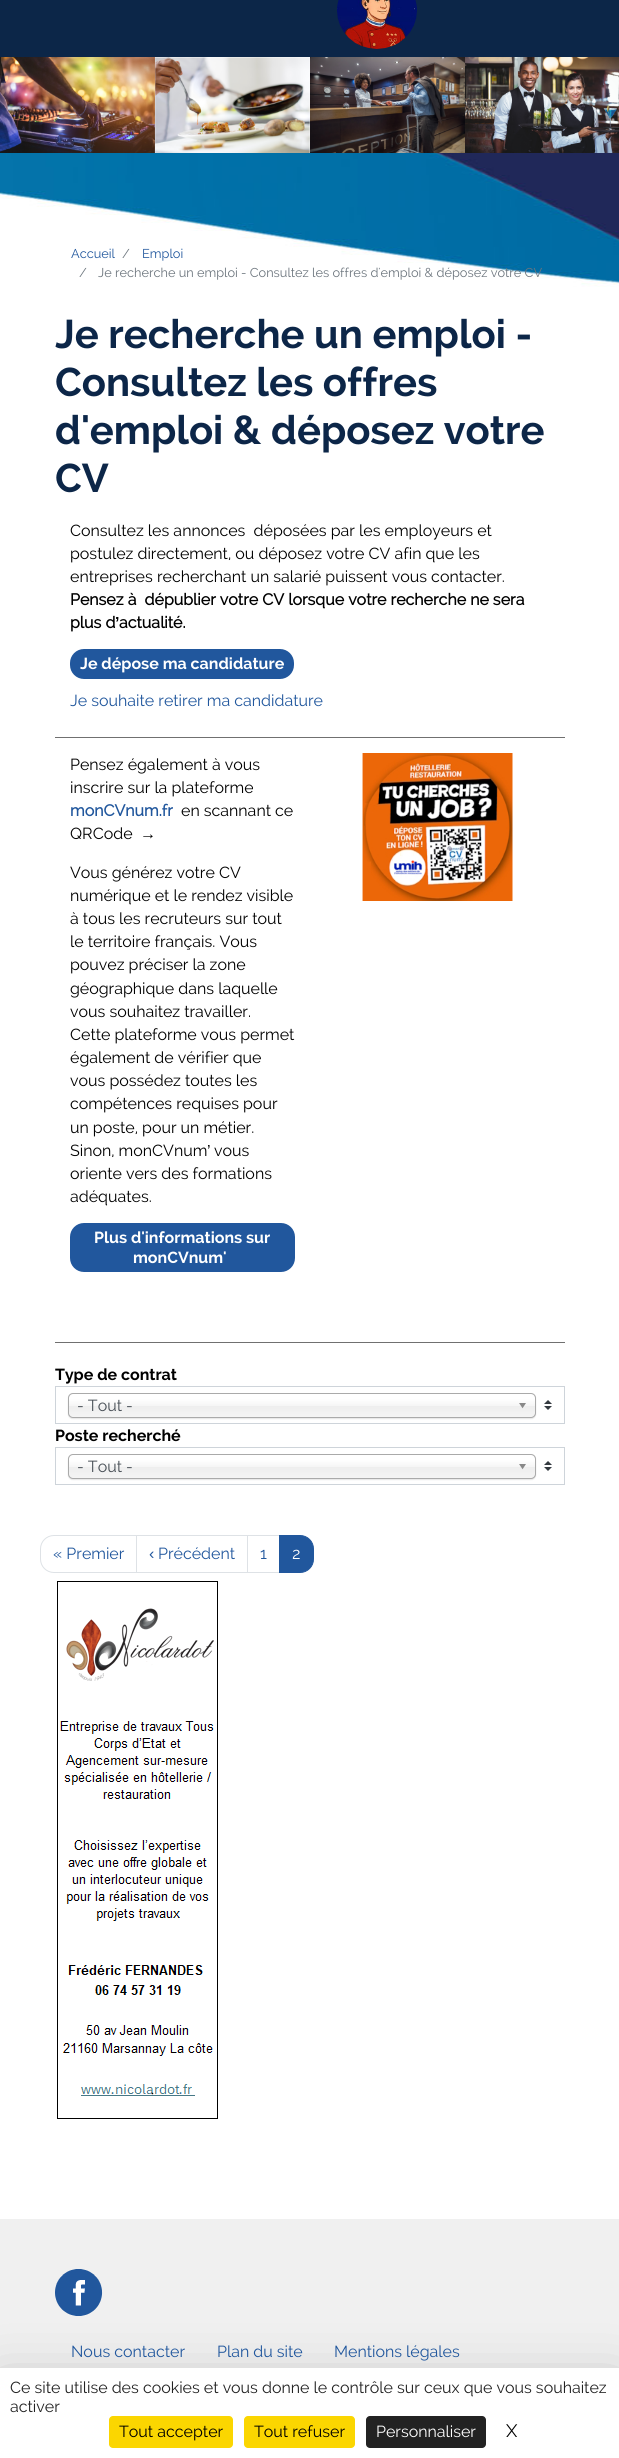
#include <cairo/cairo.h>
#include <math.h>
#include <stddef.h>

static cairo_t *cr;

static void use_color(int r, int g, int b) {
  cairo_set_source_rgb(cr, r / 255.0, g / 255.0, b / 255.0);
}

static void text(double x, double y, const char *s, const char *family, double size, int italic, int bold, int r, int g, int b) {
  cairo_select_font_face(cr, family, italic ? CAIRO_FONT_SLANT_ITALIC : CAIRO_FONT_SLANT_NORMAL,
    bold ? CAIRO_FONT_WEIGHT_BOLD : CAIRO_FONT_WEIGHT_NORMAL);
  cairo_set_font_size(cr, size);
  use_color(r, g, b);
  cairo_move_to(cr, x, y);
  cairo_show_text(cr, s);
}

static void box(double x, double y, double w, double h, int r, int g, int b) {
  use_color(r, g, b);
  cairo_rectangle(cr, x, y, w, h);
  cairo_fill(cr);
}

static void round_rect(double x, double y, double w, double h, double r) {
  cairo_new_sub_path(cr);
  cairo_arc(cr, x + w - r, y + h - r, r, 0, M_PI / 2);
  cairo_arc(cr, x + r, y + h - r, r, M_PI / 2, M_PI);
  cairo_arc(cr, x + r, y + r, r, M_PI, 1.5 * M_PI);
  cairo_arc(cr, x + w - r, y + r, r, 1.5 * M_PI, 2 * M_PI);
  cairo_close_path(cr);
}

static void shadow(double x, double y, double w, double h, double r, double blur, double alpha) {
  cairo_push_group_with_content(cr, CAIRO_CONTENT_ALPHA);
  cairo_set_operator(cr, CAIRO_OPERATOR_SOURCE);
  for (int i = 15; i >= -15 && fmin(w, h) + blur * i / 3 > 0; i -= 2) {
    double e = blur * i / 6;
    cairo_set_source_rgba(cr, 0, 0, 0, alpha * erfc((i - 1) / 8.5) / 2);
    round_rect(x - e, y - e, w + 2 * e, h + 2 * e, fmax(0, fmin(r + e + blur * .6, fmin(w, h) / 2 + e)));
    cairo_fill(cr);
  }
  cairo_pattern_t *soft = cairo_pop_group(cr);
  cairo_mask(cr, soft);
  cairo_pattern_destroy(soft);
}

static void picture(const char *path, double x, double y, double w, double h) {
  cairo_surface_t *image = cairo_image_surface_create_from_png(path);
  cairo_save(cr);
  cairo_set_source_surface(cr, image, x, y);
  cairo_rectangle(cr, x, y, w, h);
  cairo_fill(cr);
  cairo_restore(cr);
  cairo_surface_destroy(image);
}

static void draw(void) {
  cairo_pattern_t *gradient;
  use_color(255, 255, 255);
  cairo_paint(cr);
  box(0, 0, 619, 57, 12, 38, 72);
  picture("img_01.png", 337, 0, 80, 49);
  picture("img_02.png", 0, 57, 619, 96);
  picture("img_03.png", 0, 153, 619, 134);
  box(55, 737, 510, 1, 112, 112, 112);
  use_color(33, 87, 157);
  round_rect(70, 649, 224, 30, 14);
  cairo_fill(cr);
  box(55, 1342, 510, 1, 112, 112, 112);
  use_color(33, 87, 157);
  round_rect(70, 1223, 225, 49, 14);
  cairo_fill(cr);
  picture("img_04.png", 362, 753, 151, 148);
  picture("img_05.png", 544, 1400, 8, 10);
  cairo_rectangle(cr, 55.5, 1386.5, 509, 37);
  use_color(206, 212, 218);
  cairo_set_line_width(cr, 1);
  cairo_stroke(cr);
  use_color(0, 0, 0);
  shadow(68, 1394, 468, 25, 5, 0.5, 0.1);
  gradient = cairo_pattern_create_linear(302, 1394, 302, 1417);
  cairo_pattern_add_color_stop_rgba(gradient, 0.2, 1, 1, 1, 1);
  cairo_pattern_add_color_stop_rgba(gradient, 0.5, 0.965, 0.965, 0.965, 1);
  cairo_pattern_add_color_stop_rgba(gradient, 0.52, 0.933, 0.933, 0.933, 1);
  cairo_pattern_add_color_stop_rgba(gradient, 1, 0.957, 0.957, 0.957, 1);
  cairo_set_source(cr, gradient);
  cairo_pattern_destroy(gradient);
  round_rect(69, 1394, 466, 23, 4);
  cairo_fill(cr);
  round_rect(68.5, 1393.5, 467, 24, 4.5);
  use_color(170, 170, 170);
  cairo_stroke(cr);
  picture("img_06.png", 519, 1403, 7, 6);
  picture("img_05.png", 544, 1461, 8, 10);
  cairo_rectangle(cr, 55.5, 1447.5, 509, 37);
  use_color(206, 212, 218);
  cairo_stroke(cr);
  use_color(0, 0, 0);
  shadow(68, 1455, 468, 25, 5, 0.5, 0.1);
  gradient = cairo_pattern_create_linear(302, 1455, 302, 1478);
  cairo_pattern_add_color_stop_rgba(gradient, 0.2, 1, 1, 1, 1);
  cairo_pattern_add_color_stop_rgba(gradient, 0.5, 0.965, 0.965, 0.965, 1);
  cairo_pattern_add_color_stop_rgba(gradient, 0.52, 0.933, 0.933, 0.933, 1);
  cairo_pattern_add_color_stop_rgba(gradient, 1, 0.957, 0.957, 0.957, 1);
  cairo_set_source(cr, gradient);
  cairo_pattern_destroy(gradient);
  round_rect(69, 1455, 466, 23, 4);
  cairo_fill(cr);
  round_rect(68.5, 1454.5, 467, 24, 4.5);
  use_color(170, 170, 170);
  cairo_stroke(cr);
  picture("img_06.png", 519, 1464, 7, 6);
  cairo_new_path(cr);
  cairo_move_to(cr, 54, 1535.5);
  cairo_line_to(cr, 136.5, 1535.5);
  cairo_line_to(cr, 136.5, 1572.5);
  cairo_line_to(cr, 54, 1572.5);
  cairo_curve_to(cr, 46.5, 1572.5, 40.5, 1566.5, 40.5, 1559);
  cairo_line_to(cr, 40.5, 1549);
  cairo_curve_to(cr, 40.5, 1541.5, 46.5, 1535.5, 54, 1535.5);
  cairo_close_path(cr);
  use_color(222, 226, 230);
  cairo_stroke(cr);
  cairo_rectangle(cr, 136.5, 1535.5, 111, 37);
  cairo_stroke(cr);
  cairo_rectangle(cr, 247.5, 1535.5, 32, 37);
  cairo_stroke(cr);
  use_color(33, 87, 157);
  cairo_new_path(cr);
  cairo_move_to(cr, 279.5, 1535.5);
  cairo_line_to(cr, 300, 1535.5);
  cairo_curve_to(cr, 307.5, 1535.5, 313.5, 1541.5, 313.5, 1549);
  cairo_line_to(cr, 313.5, 1559);
  cairo_curve_to(cr, 313.5, 1566.5, 307.5, 1572.5, 300, 1572.5);
  cairo_line_to(cr, 279.5, 1572.5);
  cairo_close_path(cr);
  cairo_fill_preserve(cr);
  cairo_stroke(cr);
  picture("img_07.png", 57, 1581, 161, 538);
  box(0, 2219, 619, 149, 240, 240, 240);
  picture("img_08.png", 55, 2269, 48, 47);
  use_color(0, 0, 0);
  shadow(0, 2388, 619, 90, 0, 30, 0.25);
  box(0, 2368, 619, 90, 255, 255, 255);
  use_color(251, 214, 0);
  round_rect(109, 2416, 124, 32, 4);
  cairo_fill(cr);
  round_rect(244, 2416, 111, 32, 4);
  cairo_fill(cr);
  use_color(34, 34, 34);
  round_rect(366, 2416, 120, 32, 4);
  cairo_fill(cr);
  text(71, 258, "Accueil", "Raleway", 12.8, 0, 0, 33, 87, 157);
  text(122, 258, "/", "Raleway", 12.8, 0, 0, 108, 117, 125);
  text(142, 258, "Emploi", "Raleway", 12.8, 0, 0, 33, 87, 157);
  text(79, 277, "/", "Raleway", 12.8, 0, 0, 108, 117, 125);
  text(98, 277, "Je recherche un emploi - Consultez les offres d'emploi & déposez votre CV", "Raleway", 12.8, 0, 0, 108, 117, 125);
  text(55, 348, "Je recherche un emploi -", "Raleway", 40, 0, 1, 12, 38, 72);
  text(55, 396, "Consultez les offres", "Raleway", 40, 0, 1, 12, 38, 72);
  text(55, 444, "d'emploi & déposez votre", "Raleway", 40, 0, 1, 12, 38, 72);
  text(55, 492, "CV", "Raleway", 40, 0, 1, 12, 38, 72);
  text(70, 536, "Consultez les annonces  déposées par les employeurs et", "Raleway", 16, 0, 0, 0, 0, 0);
  text(70, 559, "postulez directement, ou déposez votre CV afin que les", "Raleway", 16, 0, 0, 0, 0, 0);
  text(70, 582, "entreprises recherchant un salarié puissent vous contacter.", "Raleway", 16, 0, 0, 0, 0, 0);
  text(70, 605, "Pensez à  dépublier votre CV lorsque votre recherche ne sera", "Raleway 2", 16, 0, 1, 0, 0, 0);
  text(70, 628, "plus d", "Raleway 2", 16, 0, 1, 0, 0, 0);
  text(115, 628, "’", "Liberation Sans", 16, 0, 1, 0, 0, 0);
  text(119, 628, "actualité.", "Raleway 2", 16, 0, 1, 0, 0, 0);
  text(80, 669, "Je dépose ma candidature", "Raleway", 16, 0, 1, 255, 255, 255);
  text(70, 706, "Je souhaite retirer ma candidature", "Raleway", 16, 0, 0, 33, 87, 157);
  text(70, 770, "Pensez également à vous", "Raleway", 16, 0, 0, 0, 0, 0);
  text(70, 793, "inscrire sur la plateforme", "Raleway", 16, 0, 0, 0, 0, 0);
  text(70, 816, "monCVnum.fr", "Raleway 2", 16, 0, 1, 33, 87, 157);
  text(181, 816, "en scannant ce", "Raleway", 16, 0, 0, 0, 0, 0);
  text(70, 839, "QRCode", "Raleway", 16, 0, 0, 0, 0, 0);
  text(140, 839, "→", "Liberation Sans", 16, 0, 1, 0, 0, 0);
  text(70, 878, "Vous générez votre CV", "Raleway", 16, 0, 0, 0, 0, 0);
  text(70, 901, "numérique et le rendez visible", "Raleway", 16, 0, 0, 0, 0, 0);
  text(70, 924, "à tous les recruteurs sur tout", "Raleway", 16, 0, 0, 0, 0, 0);
  text(70, 947, "le territoire français. Vous", "Raleway", 16, 0, 0, 0, 0, 0);
  text(70, 970, "pouvez préciser la zone", "Raleway", 16, 0, 0, 0, 0, 0);
  text(70, 994, "géographique dans laquelle", "Raleway", 16, 0, 0, 0, 0, 0);
  text(70, 1017, "vous souhaitez travailler.", "Raleway", 16, 0, 0, 0, 0, 0);
  text(70, 1040, "Cette plateforme vous permet", "Raleway", 16, 0, 0, 0, 0, 0);
  text(70, 1063, "également de vérifier que", "Raleway", 16, 0, 0, 0, 0, 0);
  text(70, 1086, "vous possédez toutes les", "Raleway", 16, 0, 0, 0, 0, 0);
  text(70, 1109, "compétences requises pour", "Raleway", 16, 0, 0, 0, 0, 0);
  text(70, 1133, "un poste, pour un métier.", "Raleway", 16, 0, 0, 0, 0, 0);
  text(70, 1156, "Sinon, monCVnum", "Raleway", 16, 0, 0, 0, 0, 0);
  text(207, 1156, "’", "Liberation Sans", 16, 0, 0, 0, 0, 0);
  text(214, 1156, "vous", "Raleway", 16, 0, 0, 0, 0, 0);
  text(70, 1179, "oriente vers des formations", "Raleway", 16, 0, 0, 0, 0, 0);
  text(70, 1202, "adéquates.", "Raleway", 16, 0, 0, 0, 0, 0);
  text(94, 1243, "Plus d'informations sur", "Raleway", 16, 0, 1, 255, 255, 255);
  text(133, 1263, "monCVnum'", "Raleway", 16, 0, 1, 255, 255, 255);
  text(55, 1380, "Type de contrat", "Raleway", 16, 0, 1, 0, 0, 0);
  text(77, 1411, "- Tout -", "Raleway", 16, 0, 0, 73, 80, 87);
  text(55, 1441, "Poste recherché", "Raleway", 16, 0, 1, 0, 0, 0);
  text(77, 1472, "- Tout -", "Raleway", 16, 0, 0, 73, 80, 87);
  text(53, 1559, "« Premier", "Raleway", 16, 0, 0, 33, 87, 157);
  text(149, 1559, "‹", "Liberation Sans", 16, 0, 0, 33, 87, 157);
  text(158, 1559, "Précédent", "Raleway", 16, 0, 0, 33, 87, 157);
  text(260, 1559, "1", "Raleway", 16, 0, 0, 33, 87, 157);
  text(292, 1559, "2", "Raleway", 16, 0, 0, 255, 255, 255);
  text(71, 2357, "Nous contacter", "Raleway", 16, 0, 0, 33, 87, 157);
  text(217, 2357, "Plan du site", "Raleway", 16, 0, 0, 33, 87, 157);
  text(334, 2357, "Mentions légales", "Raleway", 16, 0, 0, 33, 87, 157);
  text(10, 2393, "Ce site utilise des cookies et vous donne le contrôle sur ceux que vous souhaitez", "Raleway", 16, 0, 0, 34, 34, 34);
  text(10, 2412, "activer", "Raleway", 16, 0, 0, 34, 34, 34);
  text(119, 2437, "Tout accepter", "Raleway", 16, 0, 0, 0, 0, 0);
  text(254, 2437, "Tout refuser", "Raleway", 16, 0, 0, 0, 0, 0);
  text(376, 2437, "Personnaliser", "Raleway", 16, 0, 0, 255, 255, 255);
  text(506, 2437, "X", "Raleway", 18, 0, 0, 0, 0, 0);
}

int main(void) {
  cairo_surface_t *surface = cairo_image_surface_create(CAIRO_FORMAT_RGB24, 619, 2458);
  cr = cairo_create(surface);
  cairo_font_options_t *options = cairo_font_options_create();
  cairo_font_options_set_hint_metrics(options, CAIRO_HINT_METRICS_OFF);
  cairo_font_options_set_hint_style(options, CAIRO_HINT_STYLE_NONE);
  cairo_set_font_options(cr, options);
  cairo_set_miter_limit(cr, 4);
  draw();
  cairo_surface_write_to_png(surface, "out.png");
  cairo_font_options_destroy(options);
  cairo_destroy(cr);
  cairo_surface_destroy(surface);
  return 0;
}
